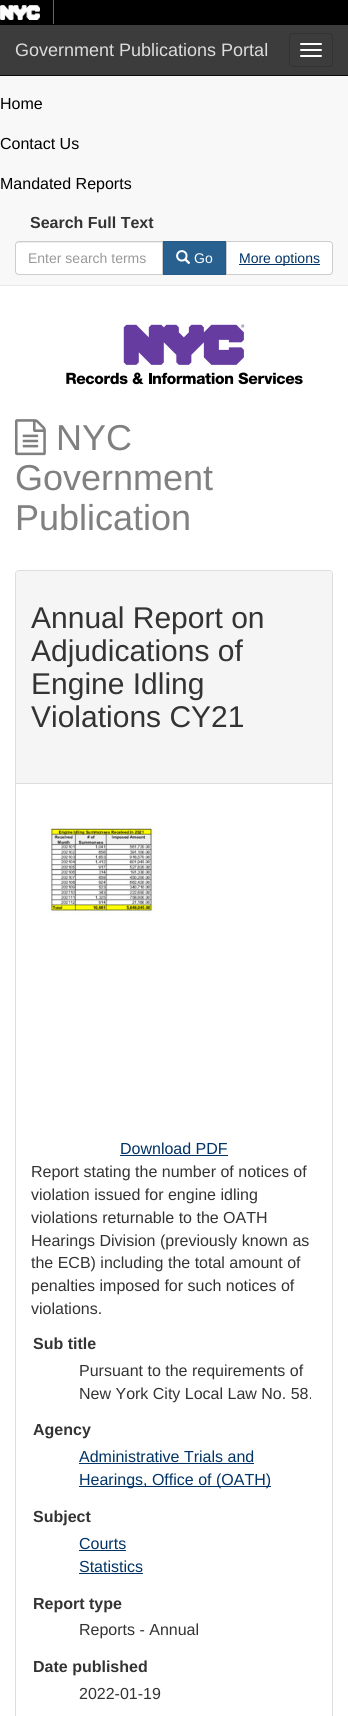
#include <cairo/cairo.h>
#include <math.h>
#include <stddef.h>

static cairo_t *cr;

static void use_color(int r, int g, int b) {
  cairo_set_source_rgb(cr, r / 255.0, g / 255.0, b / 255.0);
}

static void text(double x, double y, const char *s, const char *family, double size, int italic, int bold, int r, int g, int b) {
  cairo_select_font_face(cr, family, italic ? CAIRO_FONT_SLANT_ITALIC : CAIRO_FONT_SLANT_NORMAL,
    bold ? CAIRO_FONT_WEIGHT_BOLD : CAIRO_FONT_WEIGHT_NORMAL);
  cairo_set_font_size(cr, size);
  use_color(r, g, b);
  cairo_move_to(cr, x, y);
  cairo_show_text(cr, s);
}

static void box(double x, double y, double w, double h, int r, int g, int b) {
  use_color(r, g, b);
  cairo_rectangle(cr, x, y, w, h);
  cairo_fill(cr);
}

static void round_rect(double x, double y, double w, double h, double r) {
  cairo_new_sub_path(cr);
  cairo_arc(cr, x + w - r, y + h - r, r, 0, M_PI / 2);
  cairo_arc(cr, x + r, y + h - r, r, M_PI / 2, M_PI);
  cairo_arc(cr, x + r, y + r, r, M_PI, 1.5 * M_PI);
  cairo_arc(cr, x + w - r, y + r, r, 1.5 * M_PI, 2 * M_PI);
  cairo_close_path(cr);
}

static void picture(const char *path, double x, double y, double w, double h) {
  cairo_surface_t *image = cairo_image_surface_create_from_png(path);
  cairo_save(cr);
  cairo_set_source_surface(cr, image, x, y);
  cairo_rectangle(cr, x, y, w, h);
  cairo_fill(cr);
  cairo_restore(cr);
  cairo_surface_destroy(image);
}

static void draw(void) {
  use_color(255, 255, 255);
  cairo_paint(cr);
  box(0, 0, 348, 25, 0, 0, 0);
  picture("img_01.png", 0, 5, 40, 15);
  picture("img_02.png", 53, 0, 1, 24);
  box(0, 25, 348, 50, 60, 60, 60);
  box(0, 75, 348, 1, 9, 9, 9);
  round_rect(289.5, 33.5, 43, 33, 3.5);
  use_color(51, 51, 51);
  cairo_set_line_width(cr, 1);
  cairo_stroke(cr);
  use_color(255, 255, 255);
  round_rect(300, 43, 22, 2, 1);
  cairo_fill(cr);
  round_rect(300, 49, 22, 2, 1);
  cairo_fill(cr);
  round_rect(300, 55, 22, 2, 1);
  cairo_fill(cr);
  box(0, 76, 348, 209, 248, 248, 248);
  box(0, 285, 348, 1, 231, 231, 231);
  use_color(255, 255, 255);
  cairo_new_path(cr);
  cairo_move_to(cr, 19, 241);
  cairo_line_to(cr, 163, 241);
  cairo_line_to(cr, 163, 275);
  cairo_line_to(cr, 19, 275);
  cairo_curve_to(cr, 17, 275, 15, 273, 15, 271);
  cairo_line_to(cr, 15, 245);
  cairo_curve_to(cr, 15, 243, 17, 241, 19, 241);
  cairo_close_path(cr);
  cairo_fill(cr);
  use_color(236, 236, 236);
  cairo_new_path(cr);
  cairo_move_to(cr, 19, 243);
  cairo_line_to(cr, 162, 243);
  cairo_line_to(cr, 162, 242);
  cairo_line_to(cr, 19, 242);
  cairo_curve_to(cr, 17, 242, 16, 244, 16, 246);
  cairo_curve_to(cr, 16, 244, 17, 243, 19, 243);
  cairo_close_path(cr);
  cairo_fill(cr);
  cairo_new_path(cr);
  cairo_move_to(cr, 19, 241.5);
  cairo_line_to(cr, 162.5, 241.5);
  cairo_line_to(cr, 162.5, 274.5);
  cairo_line_to(cr, 19, 274.5);
  cairo_curve_to(cr, 17, 274.5, 15.5, 273, 15.5, 271);
  cairo_line_to(cr, 15.5, 245);
  cairo_curve_to(cr, 15.5, 243, 17, 241.5, 19, 241.5);
  cairo_close_path(cr);
  use_color(204, 204, 204);
  cairo_stroke(cr);
  use_color(40, 96, 144);
  cairo_rectangle(cr, 163.5, 241.5, 62, 33);
  cairo_fill_preserve(cr);
  use_color(38, 91, 137);
  cairo_stroke(cr);
  picture("img_03.png", 176, 250, 15, 14);
  use_color(255, 255, 255);
  cairo_new_path(cr);
  cairo_move_to(cr, 226.5, 241.5);
  cairo_line_to(cr, 329, 241.5);
  cairo_curve_to(cr, 331, 241.5, 332.5, 243, 332.5, 245);
  cairo_line_to(cr, 332.5, 271);
  cairo_curve_to(cr, 332.5, 273, 331, 274.5, 329, 274.5);
  cairo_line_to(cr, 226.5, 274.5);
  cairo_close_path(cr);
  cairo_fill_preserve(cr);
  use_color(204, 204, 204);
  cairo_stroke(cr);
  box(239, 264, 81, 1, 0, 51, 102);
  picture("img_04.png", 66, 324, 237, 61);
  picture("img_05.png", 15, 419, 31, 37);
  round_rect(15.5, 570.5, 317, 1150, 3.5);
  use_color(221, 221, 221);
  cairo_stroke(cr);
  use_color(245, 245, 245);
  cairo_new_path(cr);
  cairo_move_to(cr, 19, 571);
  cairo_line_to(cr, 329, 571);
  cairo_curve_to(cr, 330.5, 571, 332, 572.5, 332, 574);
  cairo_line_to(cr, 332, 784);
  cairo_line_to(cr, 16, 784);
  cairo_line_to(cr, 16, 574);
  cairo_curve_to(cr, 16, 572.5, 17.5, 571, 19, 571);
  cairo_close_path(cr);
  cairo_fill(cr);
  box(16, 783, 316, 1, 221, 221, 221);
  picture("img_06.png", 49, 825, 106, 89);
  box(120, 1155, 108, 1, 0, 51, 102);
  box(79, 1463, 175, 1, 0, 51, 102);
  box(79, 1486, 192, 1, 0, 51, 102);
  box(79, 1550, 47, 1, 0, 51, 102);
  box(79, 1573, 64, 1, 0, 51, 102);
  text(15, 56, "Government Publications Portal", "Liberation Sans", 18, 0, 0, 220, 220, 220);
  text(0, 109, "Home", "Liberation Sans", 16, 0, 0, 0, 0, 0);
  text(0, 149, "Contact Us", "Liberation Sans", 16, 0, 0, 0, 0, 0);
  text(0, 189, "Mandated Reports", "Liberation Sans", 16, 0, 0, 0, 0, 0);
  text(30, 228, "Search Full Text", "Liberation Sans", 16, 0, 1, 51, 51, 51);
  text(28, 263, "Enter search terms", "Liberation Sans", 14, 0, 0, 153, 153, 153);
  text(194, 263, "Go", "Liberation Sans", 14, 0, 0, 255, 255, 255);
  text(239, 263, "More options", "Liberation Sans", 14, 0, 0, 0, 51, 102);
  text(56, 450, "NYC", "Liberation Sans", 36, 0, 0, 128, 128, 128);
  text(15, 490, "Government", "Liberation Sans", 36, 0, 0, 128, 128, 128);
  text(15, 530, "Publication", "Liberation Sans", 36, 0, 0, 128, 128, 128);
  text(31, 628, "Annual Report on", "Liberation Sans", 30, 0, 0, 51, 51, 51);
  text(31, 661, "Adjudications of", "Liberation Sans", 30, 0, 0, 51, 51, 51);
  text(31, 694, "Engine Idling", "Liberation Sans", 30, 0, 0, 51, 51, 51);
  text(31, 727, "Violations CY21", "Liberation Sans", 30, 0, 0, 51, 51, 51);
  text(120, 1154, "Download PDF", "Liberation Sans", 16, 0, 0, 0, 51, 102);
  text(31, 1177, "Report stating the number of notices of", "Liberation Sans", 16, 0, 0, 51, 51, 51);
  text(31, 1200, "violation issued for engine idling", "Liberation Sans", 16, 0, 0, 51, 51, 51);
  text(31, 1223, "violations returnable to the OATH", "Liberation Sans", 16, 0, 0, 51, 51, 51);
  text(31, 1246, "Hearings Division (previously known as", "Liberation Sans", 16, 0, 0, 51, 51, 51);
  text(31, 1268, "the ECB) including the total amount of", "Liberation Sans", 16, 0, 0, 51, 51, 51);
  text(31, 1291, "penalties imposed for such notices of", "Liberation Sans", 16, 0, 0, 51, 51, 51);
  text(31, 1314, "violations.", "Liberation Sans", 16, 0, 0, 51, 51, 51);
  text(33, 1349, "Sub title", "Liberation Sans", 16, 0, 1, 51, 51, 51);
  text(79, 1376, "Pursuant to the requirements of", "Liberation Sans", 16, 0, 0, 51, 51, 51);
  text(79, 1399, "New York City Local Law No. 58.", "Liberation Sans", 16, 0, 0, 51, 51, 51);
  text(33, 1435, "Agency", "Liberation Sans", 16, 0, 1, 51, 51, 51);
  text(79, 1462, "Administrative Trials and", "Liberation Sans", 16, 0, 0, 0, 51, 102);
  text(79, 1485, "Hearings, Office of (OATH)", "Liberation Sans", 16, 0, 0, 0, 51, 102);
  text(33, 1522, "Subject", "Liberation Sans", 16, 0, 1, 51, 51, 51);
  text(79, 1549, "Courts", "Liberation Sans", 16, 0, 0, 0, 51, 102);
  text(79, 1572, "Statistics", "Liberation Sans", 16, 0, 0, 0, 51, 102);
  text(33, 1609, "Report type", "Liberation Sans", 16, 0, 1, 51, 51, 51);
  text(79, 1635, "Reports - Annual", "Liberation Sans", 16, 0, 0, 51, 51, 51);
  text(33, 1672, "Date published", "Liberation Sans", 16, 0, 1, 51, 51, 51);
  text(79, 1699, "2022-01-19", "Liberation Sans", 16, 0, 0, 51, 51, 51);
}

int main(void) {
  cairo_surface_t *surface = cairo_image_surface_create(CAIRO_FORMAT_RGB24, 348, 1716);
  cr = cairo_create(surface);
  cairo_font_options_t *options = cairo_font_options_create();
  cairo_font_options_set_hint_metrics(options, CAIRO_HINT_METRICS_OFF);
  cairo_font_options_set_hint_style(options, CAIRO_HINT_STYLE_NONE);
  cairo_set_font_options(cr, options);
  cairo_set_miter_limit(cr, 4);
  draw();
  cairo_surface_write_to_png(surface, "out.png");
  cairo_font_options_destroy(options);
  cairo_destroy(cr);
  cairo_surface_destroy(surface);
  return 0;
}
